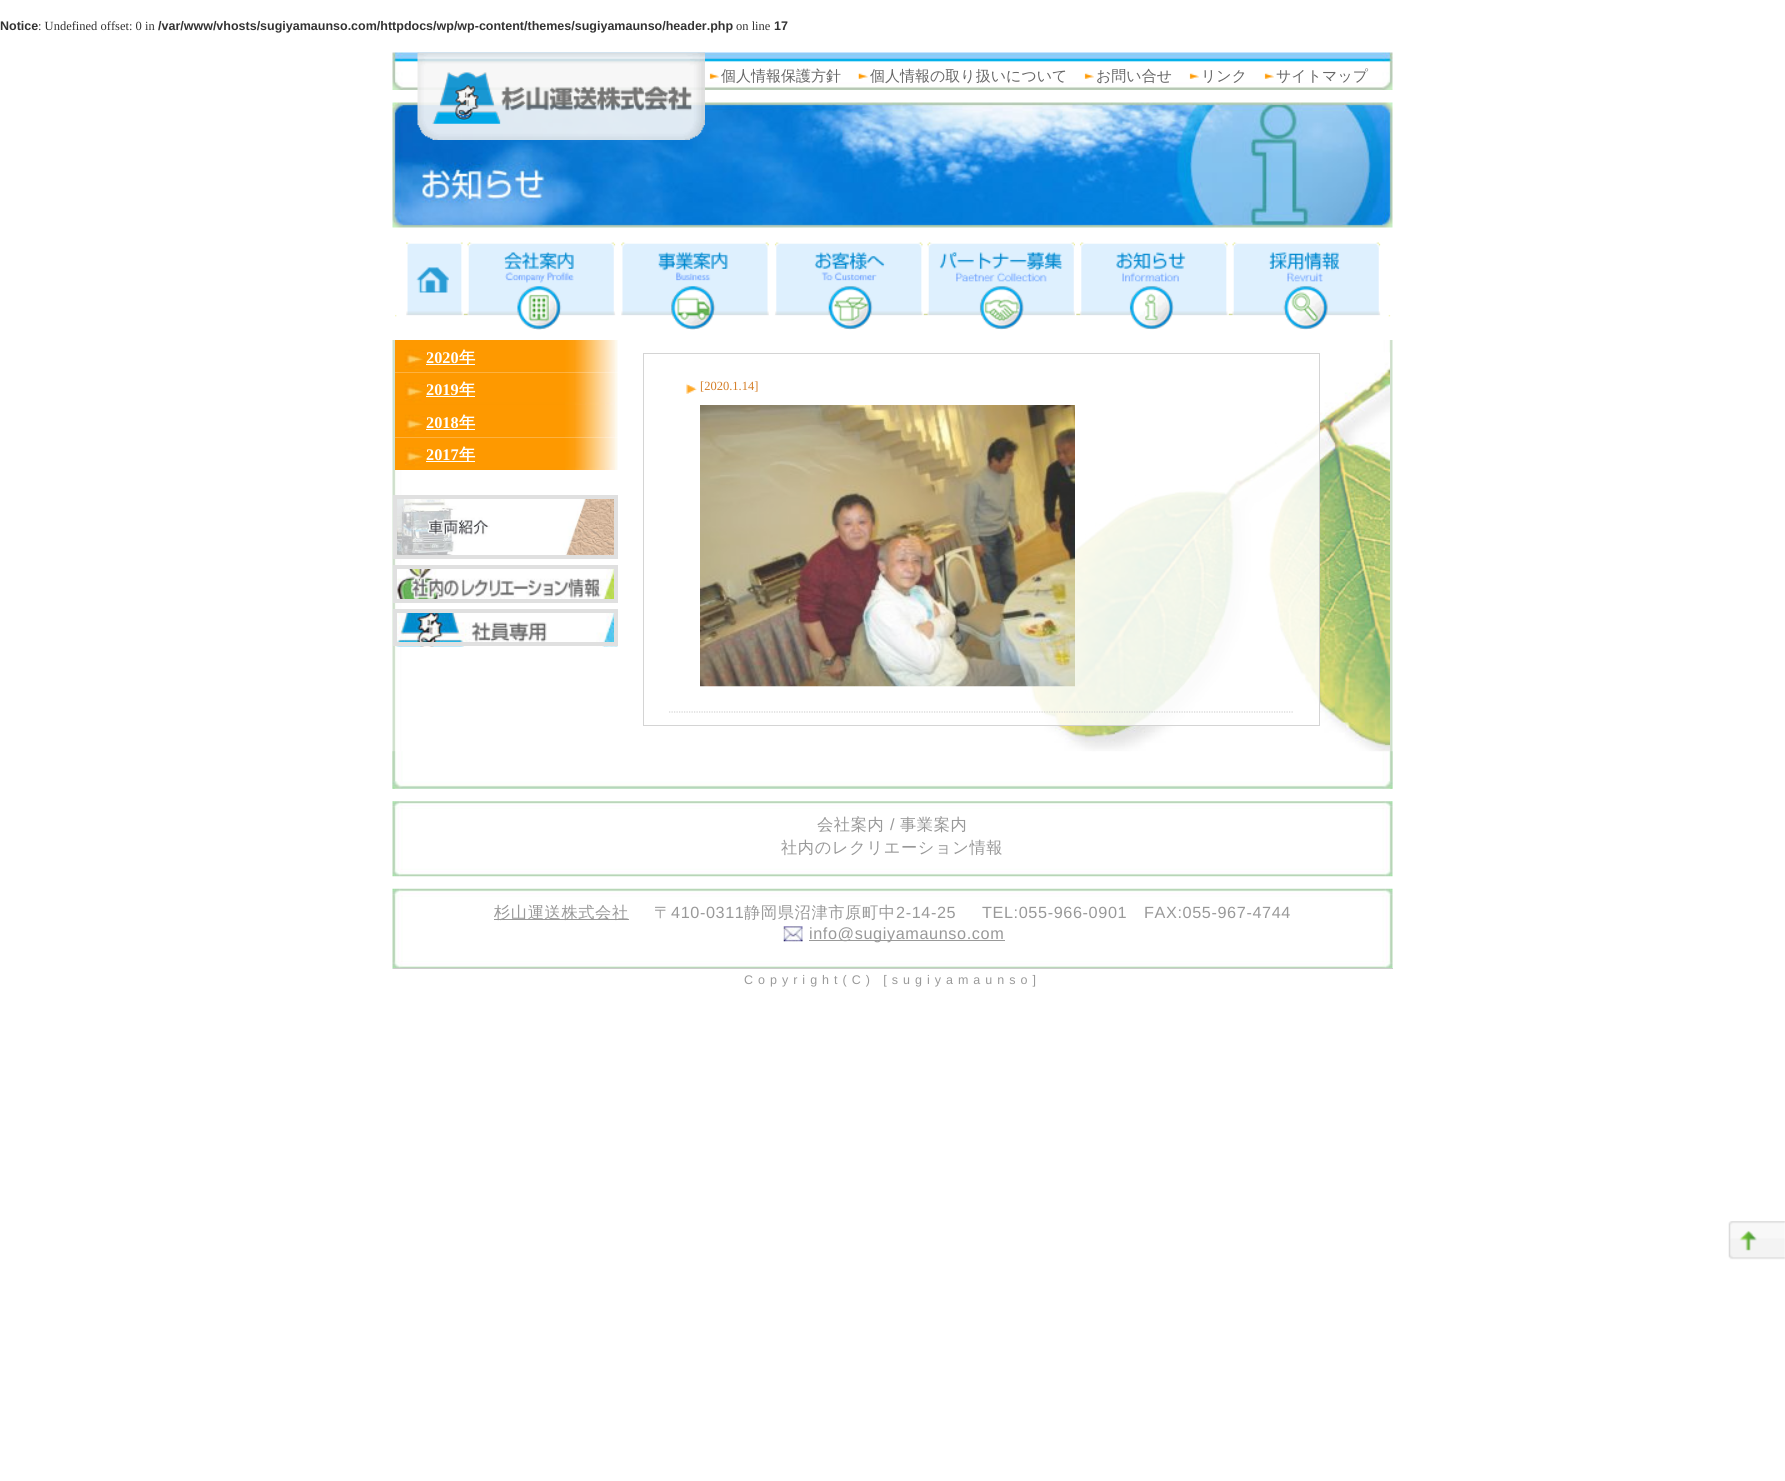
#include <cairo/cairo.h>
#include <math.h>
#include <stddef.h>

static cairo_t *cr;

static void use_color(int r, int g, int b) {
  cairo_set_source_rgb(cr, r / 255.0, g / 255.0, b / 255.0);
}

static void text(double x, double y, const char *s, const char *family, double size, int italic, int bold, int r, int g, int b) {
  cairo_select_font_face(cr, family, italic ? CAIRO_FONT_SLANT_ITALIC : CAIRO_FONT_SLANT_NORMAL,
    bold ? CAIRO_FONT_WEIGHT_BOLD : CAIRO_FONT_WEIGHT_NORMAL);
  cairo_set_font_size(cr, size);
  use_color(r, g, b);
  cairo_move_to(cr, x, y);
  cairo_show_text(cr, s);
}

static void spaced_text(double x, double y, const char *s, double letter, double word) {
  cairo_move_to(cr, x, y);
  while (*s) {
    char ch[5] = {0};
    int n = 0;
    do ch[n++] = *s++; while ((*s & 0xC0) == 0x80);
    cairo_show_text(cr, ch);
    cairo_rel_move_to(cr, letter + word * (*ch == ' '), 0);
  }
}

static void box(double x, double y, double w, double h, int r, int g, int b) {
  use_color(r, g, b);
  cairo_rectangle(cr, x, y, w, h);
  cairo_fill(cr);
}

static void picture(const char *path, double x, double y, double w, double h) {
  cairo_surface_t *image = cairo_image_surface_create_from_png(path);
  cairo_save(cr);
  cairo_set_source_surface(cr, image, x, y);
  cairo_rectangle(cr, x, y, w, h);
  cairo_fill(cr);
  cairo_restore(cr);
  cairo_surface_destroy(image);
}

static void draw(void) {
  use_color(255, 255, 255);
  cairo_paint(cr);
  picture("img_01.png", 392, 52, 1001, 38);
  picture("img_07.png", 392, 102, 1001, 126);
  picture("img_02.png", 417, 52, 288, 88);
  picture("img_03.png", 709, 73, 10, 6);
  picture("img_04.png", 858, 73, 10, 6);
  picture("img_05.png", 1084, 73, 10, 6);
  picture("img_05.png", 1189, 73, 10, 6);
  picture("img_06.png", 1264, 73, 10, 6);
  picture("img_08.png", 395, 242, 70, 75);
  picture("img_09.png", 465, 242, 151, 88);
  picture("img_10.png", 621, 242, 148, 88);
  picture("img_11.png", 774, 242, 149, 88);
  picture("img_12.png", 923, 242, 152, 88);
  picture("img_13.png", 1076, 242, 152, 88);
  picture("img_14.png", 1228, 242, 163, 88);
  picture("img_20.png", 392, 340, 1001, 449);
  picture("img_15.png", 395, 340, 223, 33);
  box(426, 364, 49, 1, 255, 255, 255);
  picture("img_16.png", 395, 372, 223, 33);
  box(426, 396, 49, 1, 255, 255, 255);
  picture("img_15.png", 395, 405, 223, 33);
  box(426, 429, 49, 1, 255, 255, 255);
  picture("img_16.png", 395, 437, 223, 33);
  box(426, 461, 49, 1, 255, 255, 255);
  picture("img_17.png", 397, 499, 217, 56);
  cairo_rectangle(cr, 395, 497, 221, 60);
  use_color(224, 224, 224);
  cairo_set_line_width(cr, 4);
  cairo_stroke(cr);
  picture("img_18.png", 397, 569, 217, 30);
  cairo_rectangle(cr, 395, 567, 221, 34);
  cairo_stroke(cr);
  picture("img_19.png", 396, 613, 222, 34);
  cairo_rectangle(cr, 395, 611, 221, 33);
  cairo_stroke(cr);
  picture("img_24.png", 392, 751, 1001, 38);
  picture("img_21.png", 1025, 352, 365, 400);
  cairo_set_source_rgba(cr, 1, 1, 1, 0.85);
  cairo_rectangle(cr, 1025, 413, 295, 313);
  cairo_fill(cr);
  cairo_rectangle(cr, 643.5, 353.5, 676, 372);
  cairo_set_source_rgba(cr, 0.8, 0.8, 0.8, 0.85);
  cairo_set_line_width(cr, 1);
  cairo_stroke(cr);
  picture("img_22.png", 686, 383, 11, 11);
  cairo_new_path(cr);
  cairo_move_to(cr, 669, 712);
  cairo_line_to(cr, 1294, 712);
  cairo_set_line_width(cr, 1.2);
  cairo_set_dash(cr, (double[]){1.25, 1.25}, 2, 0);
  cairo_stroke(cr);
  picture("img_23.png", 700, 405, 375, 282);
  picture("img_25.png", 392, 801, 1001, 76);
  picture("img_26.png", 392, 888, 1001, 81);
  box(494, 919, 135, 1, 153, 153, 153);
  picture("img_27.png", 783, 926, 20, 16);
  box(809, 940, 196, 1, 153, 153, 153);
  box(393, 968, 1000, 1, 204, 204, 204);
  picture("img_28.png", 1728, 1221, 57, 39);
  text(0, 30, "Notice", "Liberation Sans", 12.5, 0, 1, 51, 51, 51);
  text(38, 30, ": Undefined offset: 0 in", "Liberation Serif", 12.5, 0, 0, 51, 51, 51);
  text(158, 30, "/var/www/vhosts/sugiyamaunso.com/httpdocs/wp/wp-content/themes/sugiyamaunso/header.php", "Liberation Sans", 12.5, 0, 1, 51, 51, 51);
  text(736, 30, "on line", "Liberation Serif", 12.5, 0, 0, 51, 51, 51);
  text(774, 30, "17", "Liberation Sans", 12.5, 0, 1, 51, 51, 51);
  text(721, 81, "個人情報保護方針", "WenQuanYi Zen Hei Medium", 15, 0, 0, 102, 102, 102);
  text(870, 81, "個人情報の取り扱いについて", "WenQuanYi Zen Hei Medium", 15, 0, 0, 102, 102, 102);
  text(1096, 81, "お問い合せ", "WenQuanYi Zen Hei Medium", 15, 0, 0, 102, 102, 102);
  text(1201, 81, "リンク", "WenQuanYi Zen Hei Medium", 15, 0, 0, 102, 102, 102);
  text(1276, 81, "サイトマップ", "WenQuanYi Zen Hei Medium", 15, 0, 0, 102, 102, 102);
  text(426, 363, "2020", "Liberation Serif", 16.25, 0, 1, 255, 255, 255);
  text(459, 363, "年", "WenQuanYi Zen Hei", 16.25, 0, 1, 255, 255, 255);
  text(426, 395, "2019", "Liberation Serif", 16.25, 0, 1, 255, 255, 255);
  text(459, 395, "年", "WenQuanYi Zen Hei", 16.25, 0, 1, 255, 255, 255);
  text(426, 428, "2018", "Liberation Serif", 16.25, 0, 1, 255, 255, 255);
  text(459, 428, "年", "WenQuanYi Zen Hei", 16.25, 0, 1, 255, 255, 255);
  text(426, 460, "2017", "Liberation Serif", 16.25, 0, 1, 255, 255, 255);
  text(459, 460, "年", "WenQuanYi Zen Hei", 16.25, 0, 1, 255, 255, 255);
  text(700, 390, "[2020.1.14]", "Liberation Serif", 12.5, 0, 0, 212, 125, 38);
  cairo_select_font_face(cr, "WenQuanYi Zen Hei Medium", CAIRO_FONT_SLANT_NORMAL, CAIRO_FONT_WEIGHT_NORMAL);
  cairo_set_font_size(cr, 16.25);
  use_color(153, 153, 153);
  spaced_text(817, 830, "会社案内", 0.6, 0);
  cairo_select_font_face(cr, "Liberation Sans", CAIRO_FONT_SLANT_NORMAL, CAIRO_FONT_WEIGHT_NORMAL);
  spaced_text(890, 830, "/", 0.6, 0);
  cairo_select_font_face(cr, "WenQuanYi Zen Hei Medium", CAIRO_FONT_SLANT_NORMAL, CAIRO_FONT_WEIGHT_NORMAL);
  spaced_text(900, 830, "事業案内", 0.6, 0);
  spaced_text(781, 853, "社内のレクリエーション情報", 0.6, 0);
  spaced_text(494, 918, "杉山運送株式会社", 0.6, 0);
  spaced_text(654, 918, "〒", 0.6, 0);
  cairo_select_font_face(cr, "Liberation Sans", CAIRO_FONT_SLANT_NORMAL, CAIRO_FONT_WEIGHT_NORMAL);
  spaced_text(671, 918, "410-0311", 0.6, 0);
  cairo_select_font_face(cr, "WenQuanYi Zen Hei Medium", CAIRO_FONT_SLANT_NORMAL, CAIRO_FONT_WEIGHT_NORMAL);
  spaced_text(744, 918, "静岡県沼津市原町中", 0.6, 0);
  cairo_select_font_face(cr, "Liberation Sans", CAIRO_FONT_SLANT_NORMAL, CAIRO_FONT_WEIGHT_NORMAL);
  spaced_text(896, 918, "2-14-25", 0.6, 0);
  spaced_text(982, 918, "TEL:055-966-0901", 0.6, 0);
  spaced_text(1144, 918, "FAX:055-967-4744", 0.6, 0);
  spaced_text(809, 939, "info@sugiyamaunso.com", 0.6, 0);
  cairo_set_font_size(cr, 12.5);
  spaced_text(744, 984, "Copyright(C) [sugiyamaunso]", 5, 0);
}

int main(void) {
  cairo_surface_t *surface = cairo_image_surface_create(CAIRO_FORMAT_RGB24, 1785, 1481);
  cr = cairo_create(surface);
  cairo_font_options_t *options = cairo_font_options_create();
  cairo_font_options_set_hint_metrics(options, CAIRO_HINT_METRICS_OFF);
  cairo_font_options_set_hint_style(options, CAIRO_HINT_STYLE_NONE);
  cairo_set_font_options(cr, options);
  cairo_set_miter_limit(cr, 4);
  draw();
  cairo_surface_write_to_png(surface, "out.png");
  cairo_font_options_destroy(options);
  cairo_destroy(cr);
  cairo_surface_destroy(surface);
  return 0;
}
